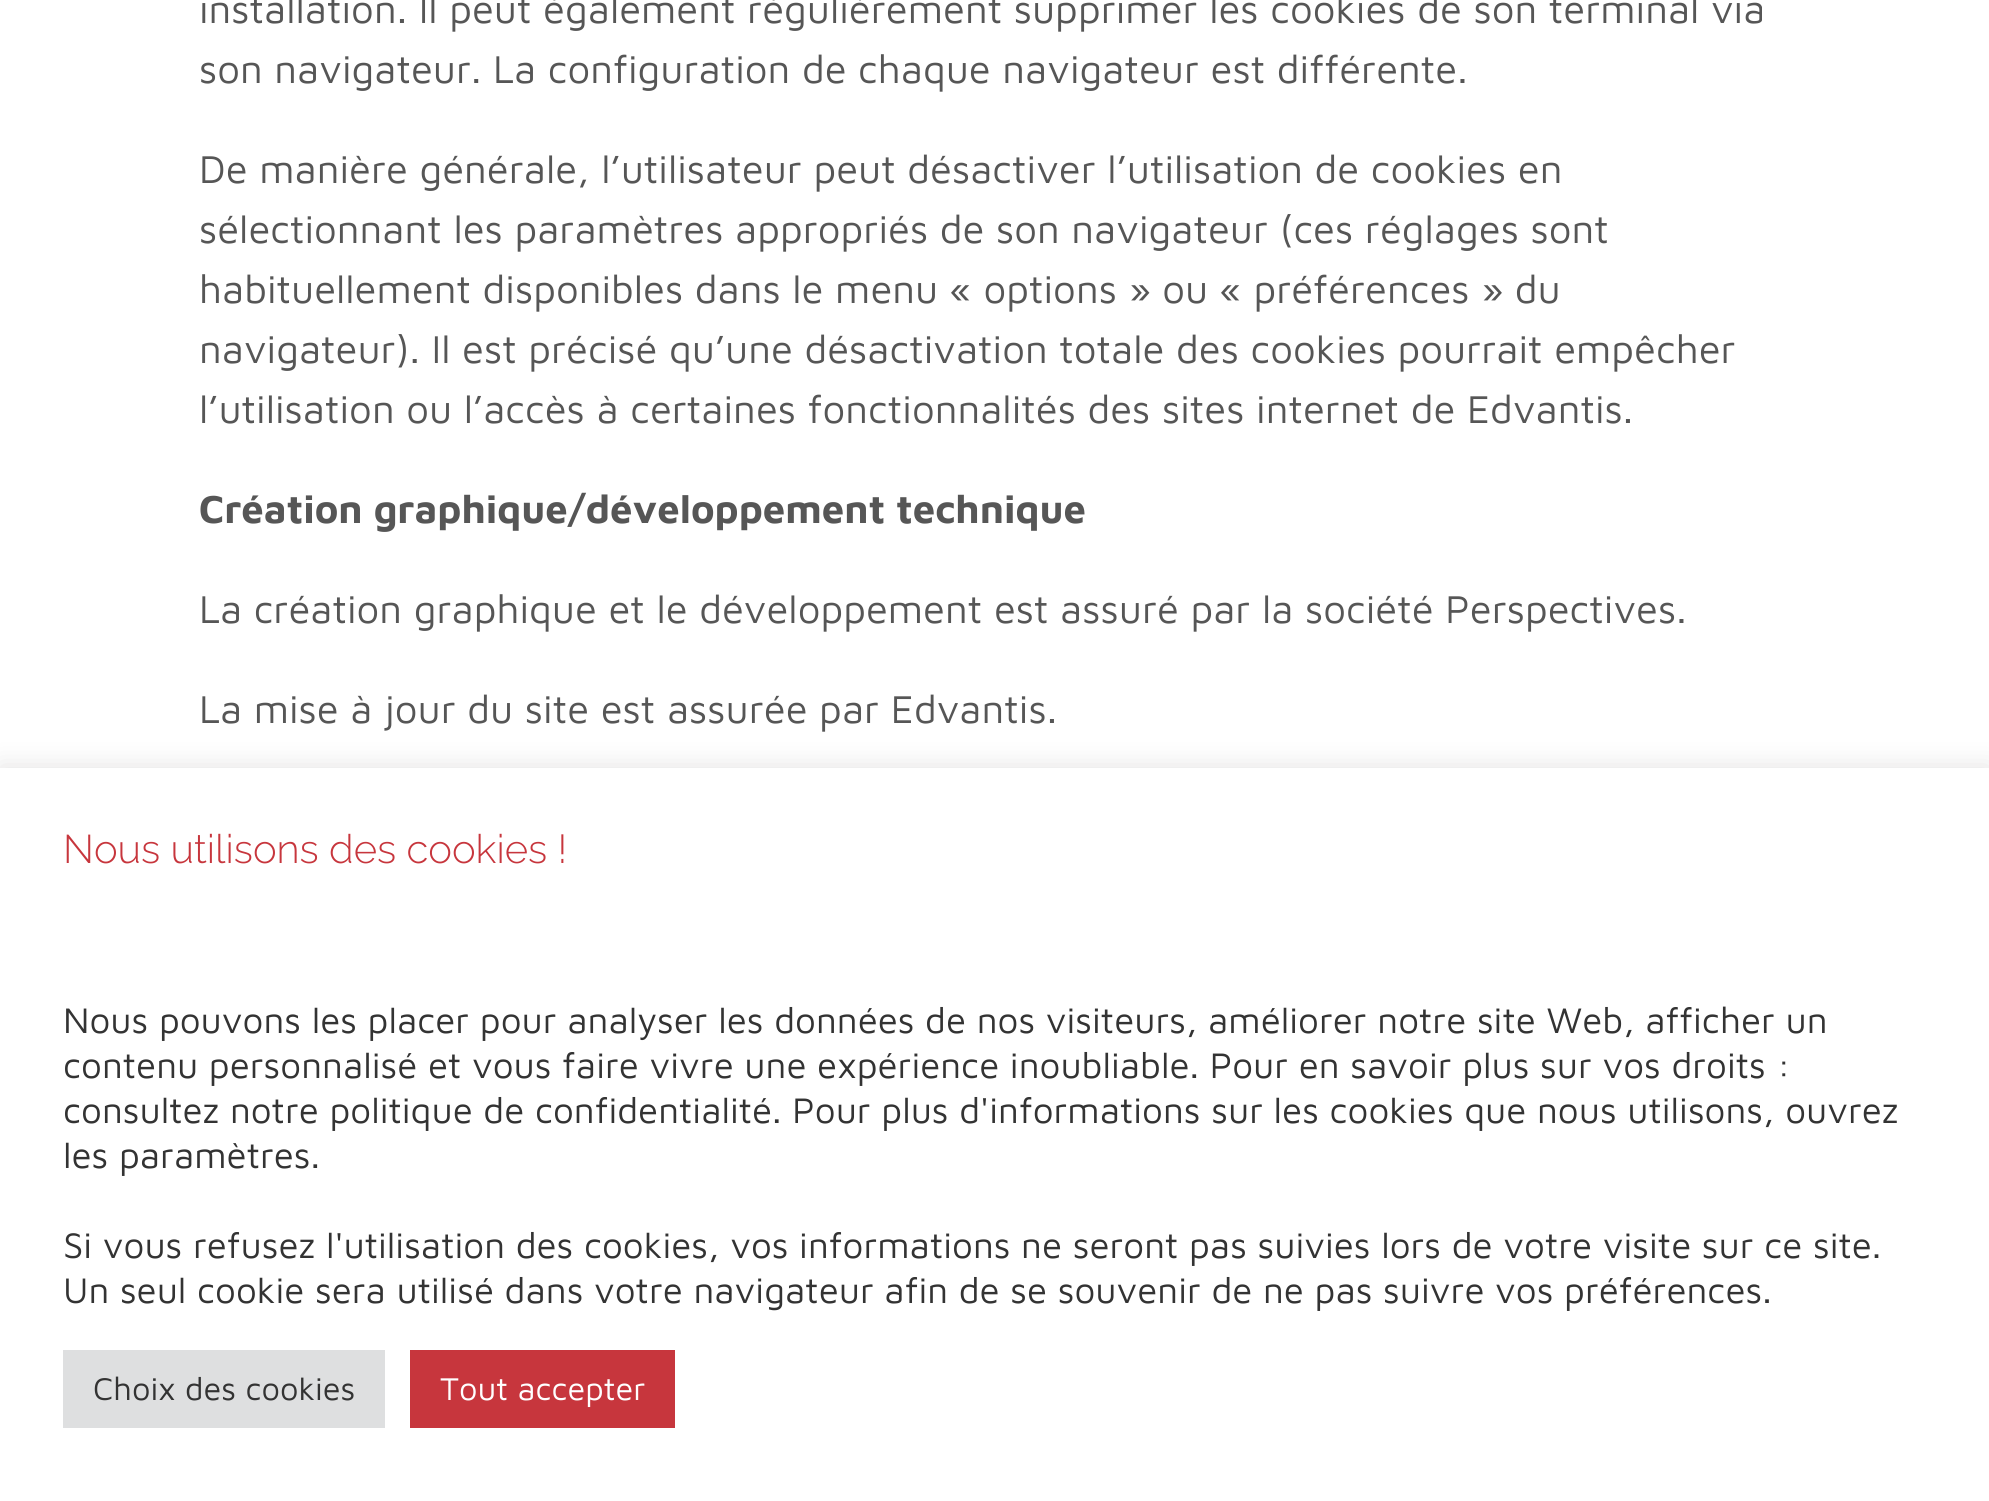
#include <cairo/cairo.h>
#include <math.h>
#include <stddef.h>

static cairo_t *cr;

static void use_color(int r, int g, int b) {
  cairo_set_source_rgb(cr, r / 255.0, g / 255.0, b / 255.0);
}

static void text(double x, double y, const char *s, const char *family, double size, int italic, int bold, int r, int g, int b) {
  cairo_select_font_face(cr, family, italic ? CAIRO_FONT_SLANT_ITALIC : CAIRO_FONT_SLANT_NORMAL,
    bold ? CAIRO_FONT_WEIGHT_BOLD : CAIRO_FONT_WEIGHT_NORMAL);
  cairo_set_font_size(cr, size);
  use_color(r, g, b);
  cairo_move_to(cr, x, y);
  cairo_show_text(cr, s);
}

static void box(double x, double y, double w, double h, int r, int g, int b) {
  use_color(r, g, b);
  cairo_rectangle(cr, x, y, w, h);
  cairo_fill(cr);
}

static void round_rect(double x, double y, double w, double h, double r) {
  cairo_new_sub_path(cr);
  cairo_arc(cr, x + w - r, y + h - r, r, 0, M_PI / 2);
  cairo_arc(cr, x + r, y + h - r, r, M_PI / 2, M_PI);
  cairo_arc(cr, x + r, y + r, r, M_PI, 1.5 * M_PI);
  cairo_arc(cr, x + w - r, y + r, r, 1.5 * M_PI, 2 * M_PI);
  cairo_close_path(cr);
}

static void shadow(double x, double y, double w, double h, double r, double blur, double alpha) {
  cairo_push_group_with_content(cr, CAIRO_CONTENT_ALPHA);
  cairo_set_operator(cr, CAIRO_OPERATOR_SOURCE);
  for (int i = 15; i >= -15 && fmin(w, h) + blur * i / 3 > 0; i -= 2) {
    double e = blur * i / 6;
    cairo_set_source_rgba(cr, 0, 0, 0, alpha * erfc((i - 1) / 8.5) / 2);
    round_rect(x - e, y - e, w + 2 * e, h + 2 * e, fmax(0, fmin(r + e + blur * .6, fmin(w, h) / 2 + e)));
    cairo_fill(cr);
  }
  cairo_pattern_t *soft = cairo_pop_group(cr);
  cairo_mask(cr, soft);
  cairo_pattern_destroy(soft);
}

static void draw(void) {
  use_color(255, 255, 255);
  cairo_paint(cr);
  use_color(172, 171, 171);
  shadow(0, 765, 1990, 735, 0, 12.5, 0.3);
  box(0, 768, 1989, 733, 255, 255, 255);
  box(63, 1350, 322, 78, 222, 223, 224);
  box(410, 1350, 265, 78, 199, 54, 61);
  text(199, 23, "installation. Il peut également régulièrement supprimer les cookies de son terminal via", "Maven Pro", 40, 0, 0, 86, 86, 86);
  text(199, 83, "son navigateur. La configuration de chaque navigateur est différente.", "Maven Pro", 40, 0, 0, 86, 86, 86);
  text(199, 183, "De manière générale, l’utilisateur peut désactiver l’utilisation de cookies en", "Maven Pro", 40, 0, 0, 86, 86, 86);
  text(199, 243, "sélectionnant les paramètres appropriés de son navigateur (ces réglages sont", "Maven Pro", 40, 0, 0, 86, 86, 86);
  text(199, 303, "habituellement disponibles dans le menu « options » ou « préférences » du", "Maven Pro", 40, 0, 0, 86, 86, 86);
  text(199, 363, "navigateur). Il est précisé qu’une désactivation totale des cookies pourrait empêcher", "Maven Pro", 40, 0, 0, 86, 86, 86);
  text(199, 423, "l’utilisation ou l’accès à certaines fonctionnalités des sites internet de Edvantis.", "Maven Pro", 40, 0, 0, 86, 86, 86);
  text(199, 523, "Création graphique/développement technique", "Maven Pro", 40, 0, 1, 86, 86, 86);
  text(199, 623, "La création graphique et le développement est assuré par la société Perspectives.", "Maven Pro", 40, 0, 0, 86, 86, 86);
  text(199, 723, "La mise à jour du site est assurée par Edvantis.", "Maven Pro", 40, 0, 0, 86, 86, 86);
  text(63, 863, "Nous utilisons des cookies !", "Raleway Light", 40, 0, 0, 199, 54, 61);
  text(63, 1033, "Nous pouvons les placer pour analyser les données de nos visiteurs, améliorer notre site Web, afficher un", "Maven Pro", 36.67, 0, 0, 51, 51, 51);
  text(63, 1078, "contenu personnalisé et vous faire vivre une expérience inoubliable. Pour en savoir plus sur vos droits :", "Maven Pro", 36.67, 0, 0, 51, 51, 51);
  text(63, 1123, "consultez notre politique de confidentialité. Pour plus d'informations sur les cookies que nous utilisons, ouvrez", "Maven Pro", 36.67, 0, 0, 51, 51, 51);
  text(63, 1168, "les paramètres.", "Maven Pro", 36.67, 0, 0, 51, 51, 51);
  text(63, 1258, "Si vous refusez l'utilisation des cookies, vos informations ne seront pas suivies lors de votre visite sur ce site.", "Maven Pro", 36.67, 0, 0, 51, 51, 51);
  text(63, 1303, "Un seul cookie sera utilisé dans votre navigateur afin de se souvenir de ne pas suivre vos préférences.", "Maven Pro", 36.67, 0, 0, 51, 51, 51);
  text(93, 1400, "Choix des cookies", "Maven Pro", 32.5, 0, 0, 51, 51, 51);
  text(440, 1400, "Tout accepter", "Maven Pro", 32.5, 0, 0, 255, 255, 255);
}

int main(void) {
  cairo_surface_t *surface = cairo_image_surface_create(CAIRO_FORMAT_RGB24, 1989, 1501);
  cr = cairo_create(surface);
  cairo_font_options_t *options = cairo_font_options_create();
  cairo_font_options_set_hint_metrics(options, CAIRO_HINT_METRICS_OFF);
  cairo_font_options_set_hint_style(options, CAIRO_HINT_STYLE_NONE);
  cairo_set_font_options(cr, options);
  cairo_set_miter_limit(cr, 4);
  draw();
  cairo_surface_write_to_png(surface, "out.png");
  cairo_font_options_destroy(options);
  cairo_destroy(cr);
  cairo_surface_destroy(surface);
  return 0;
}
